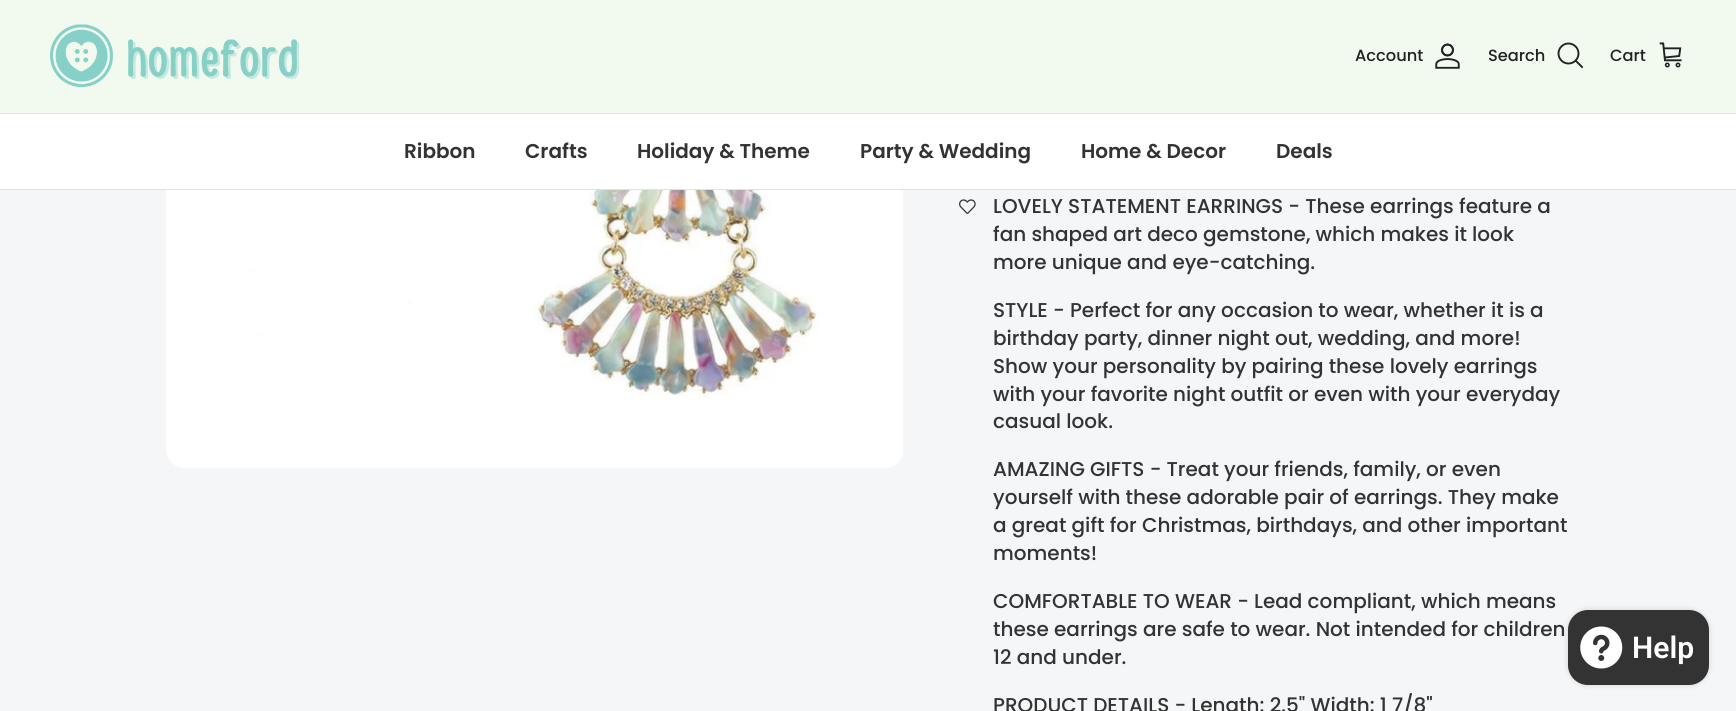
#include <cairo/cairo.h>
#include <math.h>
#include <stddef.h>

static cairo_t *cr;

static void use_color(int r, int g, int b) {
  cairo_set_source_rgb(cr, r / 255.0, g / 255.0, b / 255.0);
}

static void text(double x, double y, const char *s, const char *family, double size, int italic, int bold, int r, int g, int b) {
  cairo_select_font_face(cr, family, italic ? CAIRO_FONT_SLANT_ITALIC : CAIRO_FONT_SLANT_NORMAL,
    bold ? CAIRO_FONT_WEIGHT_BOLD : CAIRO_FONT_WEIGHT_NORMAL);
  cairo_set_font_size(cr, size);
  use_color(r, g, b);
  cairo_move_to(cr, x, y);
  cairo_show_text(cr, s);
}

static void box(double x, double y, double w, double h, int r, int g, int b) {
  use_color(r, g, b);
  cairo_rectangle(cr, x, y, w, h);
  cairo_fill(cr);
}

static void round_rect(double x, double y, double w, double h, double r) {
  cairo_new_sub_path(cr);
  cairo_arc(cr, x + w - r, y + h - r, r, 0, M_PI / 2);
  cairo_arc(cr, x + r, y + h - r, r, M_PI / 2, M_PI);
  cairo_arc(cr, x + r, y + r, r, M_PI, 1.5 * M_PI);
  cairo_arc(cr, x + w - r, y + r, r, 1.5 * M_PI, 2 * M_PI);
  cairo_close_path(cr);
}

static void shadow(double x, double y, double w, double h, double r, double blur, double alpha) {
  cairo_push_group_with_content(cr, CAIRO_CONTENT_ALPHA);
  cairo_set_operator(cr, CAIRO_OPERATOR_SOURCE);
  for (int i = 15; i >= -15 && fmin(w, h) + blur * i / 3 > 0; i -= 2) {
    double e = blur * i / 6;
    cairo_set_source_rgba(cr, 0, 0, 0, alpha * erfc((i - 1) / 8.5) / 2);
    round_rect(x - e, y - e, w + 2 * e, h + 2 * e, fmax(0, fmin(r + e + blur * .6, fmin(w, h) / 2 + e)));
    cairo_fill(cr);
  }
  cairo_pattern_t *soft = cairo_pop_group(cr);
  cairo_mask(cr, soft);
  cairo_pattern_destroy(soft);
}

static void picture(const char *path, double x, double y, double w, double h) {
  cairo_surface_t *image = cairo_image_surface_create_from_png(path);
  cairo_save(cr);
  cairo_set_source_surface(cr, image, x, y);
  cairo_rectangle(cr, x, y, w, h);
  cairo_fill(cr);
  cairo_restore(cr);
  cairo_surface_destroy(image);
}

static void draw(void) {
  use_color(244, 246, 248);
  cairo_paint(cr);
  box(0, 0, 1736, 113, 242, 250, 240);
  box(0, 113, 1736, 1, 226, 226, 226);
  picture("img_01.png", 50, 24, 250, 63);
  picture("img_02.png", 1435, 43, 25, 26);
  cairo_arc(cr, 1568.5, 53.5, 10, 0, 2 * M_PI);
  use_color(32, 34, 35);
  cairo_set_line_width(cr, 1.9);
  cairo_stroke(cr);
  cairo_new_path(cr);
  cairo_move_to(cr, 1576, 61);
  cairo_line_to(cr, 1582, 67);
  cairo_set_line_cap(cr, CAIRO_LINE_CAP_SQUARE);
  cairo_stroke(cr);
  picture("img_03.png", 1659, 42, 23, 26);
  box(0, 189, 1736, 1, 226, 226, 226);
  box(0, 114, 1736, 75, 255, 255, 255);
  picture("img_04.png", 166, 190, 737, 278);
  picture("img_05.png", 959, 199, 17, 15);
  use_color(0, 0, 0);
  shadow(1568, 610, 141, 75, 20, 3, 0.15);
  use_color(51, 51, 51);
  round_rect(1568, 610, 141, 75, 20);
  cairo_fill(cr);
  picture("img_06.png", 1580, 626, 43, 43);
  text(1355, 61, "Account", "Poppins Medium", 16.25, 0, 0, 32, 34, 35);
  text(1488, 61, "Search", "Poppins Medium", 16.25, 0, 0, 32, 34, 35);
  text(1610, 61, "Cart", "Poppins Medium", 16.25, 0, 0, 32, 34, 35);
  text(404, 158, "Ribbon", "Poppins SemiBold", 20, 0, 0, 51, 51, 51);
  text(525, 158, "Crafts", "Poppins SemiBold", 20, 0, 0, 51, 51, 51);
  text(637, 158, "Holiday & Theme", "Poppins SemiBold", 20, 0, 0, 51, 51, 51);
  text(860, 158, "Party & Wedding", "Poppins SemiBold", 20, 0, 0, 51, 51, 51);
  text(1081, 158, "Home & Decor", "Poppins SemiBold", 20, 0, 0, 51, 51, 51);
  text(1276, 158, "Deals", "Poppins SemiBold", 20, 0, 0, 51, 51, 51);
  text(993, 213, "LOVELY STATEMENT EARRINGS - These earrings feature a", "Poppins Medium", 20, 0, 0, 51, 51, 51);
  text(993, 241, "fan shaped art deco gemstone, which makes it look", "Poppins Medium", 20, 0, 0, 51, 51, 51);
  text(993, 269, "more unique and eye-catching.", "Poppins Medium", 20, 0, 0, 51, 51, 51);
  text(993, 317, "STYLE - Perfect for any occasion to wear, whether it is a", "Poppins Medium", 20, 0, 0, 51, 51, 51);
  text(993, 345, "birthday party, dinner night out, wedding, and more!", "Poppins Medium", 20, 0, 0, 51, 51, 51);
  text(993, 373, "Show your personality by pairing these lovely earrings", "Poppins Medium", 20, 0, 0, 51, 51, 51);
  text(993, 401, "with your favorite night outfit or even with your everyday", "Poppins Medium", 20, 0, 0, 51, 51, 51);
  text(993, 428, "casual look.", "Poppins Medium", 20, 0, 0, 51, 51, 51);
  text(993, 476, "AMAZING GIFTS - Treat your friends, family, or even", "Poppins Medium", 20, 0, 0, 51, 51, 51);
  text(993, 504, "yourself with these adorable pair of earrings. They make", "Poppins Medium", 20, 0, 0, 51, 51, 51);
  text(993, 532, "a great gift for Christmas, birthdays, and other important", "Poppins Medium", 20, 0, 0, 51, 51, 51);
  text(993, 560, "moments!", "Poppins Medium", 20, 0, 0, 51, 51, 51);
  text(993, 608, "COMFORTABLE TO WEAR - Lead compliant, which means", "Poppins Medium", 20, 0, 0, 51, 51, 51);
  text(993, 636, "these earrings are safe to wear. Not intended for children", "Poppins Medium", 20, 0, 0, 51, 51, 51);
  text(993, 664, "12 and under.", "Poppins Medium", 20, 0, 0, 51, 51, 51);
  text(993, 712, "PRODUCT DETAILS - Length: 2.5\" Width: 1 7/8\"", "Poppins Medium", 20, 0, 0, 51, 51, 51);
  text(1632, 658, "Help", "Roboto SemiBold", 30, 0, 0, 255, 255, 255);
}

int main(void) {
  cairo_surface_t *surface = cairo_image_surface_create(CAIRO_FORMAT_RGB24, 1736, 711);
  cr = cairo_create(surface);
  cairo_font_options_t *options = cairo_font_options_create();
  cairo_font_options_set_hint_metrics(options, CAIRO_HINT_METRICS_OFF);
  cairo_font_options_set_hint_style(options, CAIRO_HINT_STYLE_NONE);
  cairo_set_font_options(cr, options);
  cairo_set_miter_limit(cr, 4);
  draw();
  cairo_surface_write_to_png(surface, "out.png");
  cairo_font_options_destroy(options);
  cairo_destroy(cr);
  cairo_surface_destroy(surface);
  return 0;
}
